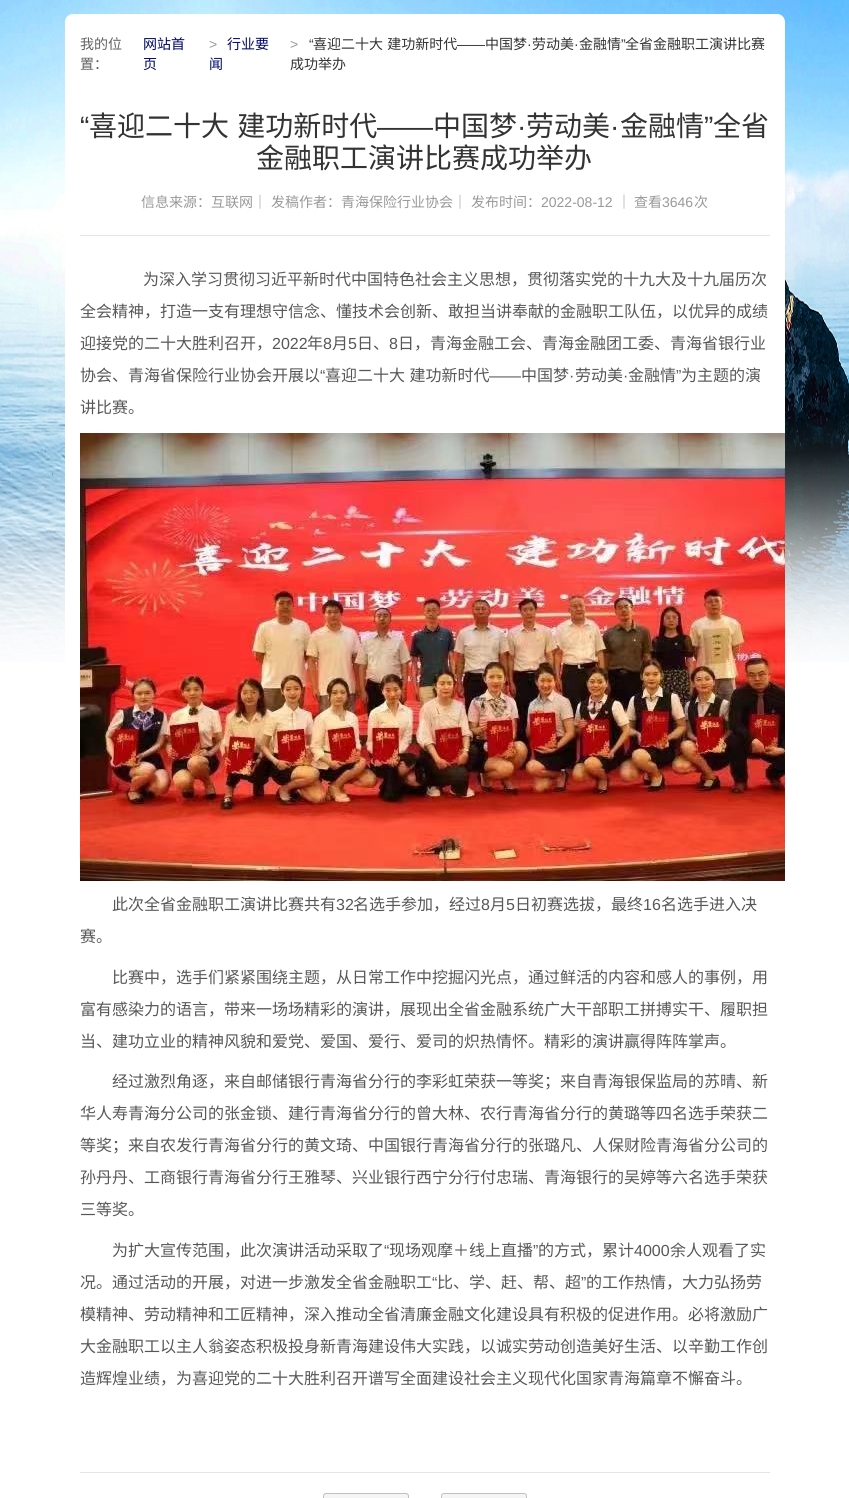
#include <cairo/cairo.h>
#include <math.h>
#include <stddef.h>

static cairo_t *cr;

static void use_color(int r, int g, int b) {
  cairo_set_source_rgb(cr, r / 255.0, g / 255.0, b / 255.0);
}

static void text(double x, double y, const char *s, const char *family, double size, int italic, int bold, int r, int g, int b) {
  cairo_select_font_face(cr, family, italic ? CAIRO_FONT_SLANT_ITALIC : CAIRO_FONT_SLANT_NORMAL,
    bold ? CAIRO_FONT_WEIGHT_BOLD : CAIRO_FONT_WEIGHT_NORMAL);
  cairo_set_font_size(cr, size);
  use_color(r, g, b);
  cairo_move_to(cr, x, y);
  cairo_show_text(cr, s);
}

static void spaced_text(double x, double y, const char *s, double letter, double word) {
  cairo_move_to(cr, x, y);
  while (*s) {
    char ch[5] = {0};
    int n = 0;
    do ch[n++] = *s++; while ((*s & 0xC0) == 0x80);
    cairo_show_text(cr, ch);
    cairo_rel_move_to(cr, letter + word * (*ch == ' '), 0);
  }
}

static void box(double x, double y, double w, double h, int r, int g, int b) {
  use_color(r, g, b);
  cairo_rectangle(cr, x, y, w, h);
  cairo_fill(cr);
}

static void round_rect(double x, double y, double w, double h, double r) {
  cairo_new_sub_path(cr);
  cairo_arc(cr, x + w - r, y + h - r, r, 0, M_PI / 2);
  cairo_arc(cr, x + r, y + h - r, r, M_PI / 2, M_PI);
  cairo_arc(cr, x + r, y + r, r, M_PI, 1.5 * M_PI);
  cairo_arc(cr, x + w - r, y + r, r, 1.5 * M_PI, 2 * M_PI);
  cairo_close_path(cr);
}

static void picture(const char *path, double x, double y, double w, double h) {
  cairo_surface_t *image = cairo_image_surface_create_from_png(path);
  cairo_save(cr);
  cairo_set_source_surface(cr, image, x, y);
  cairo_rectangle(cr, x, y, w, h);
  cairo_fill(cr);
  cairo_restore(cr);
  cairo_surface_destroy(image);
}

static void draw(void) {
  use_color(255, 255, 255);
  cairo_paint(cr);
  picture("img_01.png", 0, 0, 849, 662);
  use_color(255, 255, 255);
  round_rect(65, 14, 720, 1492, 8);
  cairo_fill(cr);
  box(80, 235, 690, 1, 229, 229, 229);
  box(80, 1472, 690, 1, 229, 229, 229);
  picture("img_02.png", 80, 433, 705, 448);
  use_color(245, 245, 245);
  round_rect(323.5, 1493.5, 85, 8, 2.5);
  cairo_fill_preserve(cr);
  use_color(189, 192, 197);
  cairo_set_line_width(cr, 1);
  cairo_stroke(cr);
  use_color(245, 245, 245);
  round_rect(441.5, 1493.5, 85, 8, 2.5);
  cairo_fill_preserve(cr);
  use_color(189, 192, 197);
  cairo_stroke(cr);
  text(80, 49, "我的位", "Noto Sans CJK SC", 14, 0, 0, 97, 97, 97);
  text(143, 49, "网站首", "Noto Sans CJK SC", 14, 0, 0, 0, 6, 102);
  text(143, 69, "页", "Noto Sans CJK SC", 14, 0, 0, 0, 6, 102);
  text(209, 49, ">", "Liberation Sans", 14, 0, 0, 153, 153, 153);
  text(227, 49, "行业要", "Noto Sans CJK SC", 14, 0, 0, 0, 6, 102);
  text(209, 69, "闻", "Noto Sans CJK SC", 14, 0, 0, 0, 6, 102);
  text(290, 49, ">", "Liberation Sans", 14, 0, 0, 153, 153, 153);
  text(309, 49, "“", "Liberation Sans", 14, 0, 0, 51, 51, 51);
  cairo_select_font_face(cr, "Noto Sans CJK SC", CAIRO_FONT_SLANT_NORMAL, CAIRO_FONT_WEIGHT_NORMAL);
  spaced_text(313, 49, "喜迎二十大 建功新时代", 0, 1);
  text(457, 49, "——", "Liberation Sans", 14, 0, 0, 51, 51, 51);
  text(485, 49, "中国梦", "Noto Sans CJK SC", 14, 0, 0, 51, 51, 51);
  text(527, 49, "·", "Liberation Sans", 14, 0, 0, 51, 51, 51);
  text(532, 49, "劳动美", "Noto Sans CJK SC", 14, 0, 0, 51, 51, 51);
  text(574, 49, "·", "Liberation Sans", 14, 0, 0, 51, 51, 51);
  text(579, 49, "金融情", "Noto Sans CJK SC", 14, 0, 0, 51, 51, 51);
  text(621, 49, "”", "Liberation Sans", 14, 0, 0, 51, 51, 51);
  text(625, 49, "全省金融职工演讲比赛", "Noto Sans CJK SC", 14, 0, 0, 51, 51, 51);
  text(290, 69, "成功举办", "Noto Sans CJK SC", 14, 0, 0, 51, 51, 51);
  text(80, 69, "置：", "Noto Sans CJK SC", 14, 0, 0, 97, 97, 97);
  text(80, 136, "“", "Liberation Sans", 28, 0, 0, 51, 51, 51);
  cairo_select_font_face(cr, "Noto Sans CJK SC", CAIRO_FONT_SLANT_NORMAL, CAIRO_FONT_WEIGHT_NORMAL);
  spaced_text(89, 136, "喜迎二十大 建功新时代", 0, 2);
  text(433, 136, "中国梦", "Noto Sans CJK SC", 28, 0, 0, 51, 51, 51);
  text(526, 136, "劳动美", "Noto Sans CJK SC", 28, 0, 0, 51, 51, 51);
  text(620, 136, "金融情", "Noto Sans CJK SC", 28, 0, 0, 51, 51, 51);
  text(704, 136, "”", "Liberation Sans", 28, 0, 0, 51, 51, 51);
  text(713, 136, "全省", "Noto Sans CJK SC", 28, 0, 0, 51, 51, 51);
  text(377, 136, "——", "Liberation Sans", 28, 0, 0, 51, 51, 51);
  text(517, 136, "·", "Liberation Sans", 28, 0, 0, 51, 51, 51);
  text(610, 136, "·", "Liberation Sans", 28, 0, 0, 51, 51, 51);
  text(256, 168, "金融职工演讲比赛成功举办", "Noto Sans CJK SC", 28, 0, 0, 51, 51, 51);
  text(141, 207, "信息来源：互联网｜", "Noto Sans CJK SC", 14, 0, 0, 153, 153, 153);
  text(271, 207, "发稿作者：青海保险行业协会｜", "Noto Sans CJK SC", 14, 0, 0, 153, 153, 153);
  text(471, 207, "发布时间：", "Noto Sans CJK SC", 14, 0, 0, 153, 153, 153);
  text(541, 207, "2022-08-12", "Liberation Sans", 14, 0, 0, 153, 153, 153);
  text(617, 207, "｜", "Noto Sans CJK SC", 14, 0, 0, 153, 153, 153);
  text(634, 207, "查看", "Noto Sans CJK SC", 14, 0, 0, 153, 153, 153);
  text(662, 207, "3646", "Liberation Sans", 14, 0, 0, 153, 153, 153);
  text(694, 207, "次", "Noto Sans CJK SC", 14, 0, 0, 153, 153, 153);
  text(143, 285, "为深入学习贯彻习近平新时代中国特色社会主义思想，贯彻落实党的十九大及十九届历次", "Noto Sans CJK SC", 16, 0, 0, 87, 87, 87);
  text(80, 317, "全会精神，打造一支有理想守信念、懂技术会创新、敢担当讲奉献的金融职工队伍，以优异的成绩", "Noto Sans CJK SC", 16, 0, 0, 87, 87, 87);
  text(80, 349, "迎接党的二十大胜利召开，", "Noto Sans CJK SC", 16, 0, 0, 87, 87, 87);
  text(272, 349, "2022", "Liberation Sans", 16, 0, 0, 87, 87, 87);
  text(307, 349, "年", "Noto Sans CJK SC", 16, 0, 0, 87, 87, 87);
  text(323, 349, "8", "Liberation Sans", 16, 0, 0, 87, 87, 87);
  text(332, 349, "月", "Noto Sans CJK SC", 16, 0, 0, 87, 87, 87);
  text(348, 349, "5", "Liberation Sans", 16, 0, 0, 87, 87, 87);
  text(357, 349, "日、", "Noto Sans CJK SC", 16, 0, 0, 87, 87, 87);
  text(389, 349, "8", "Liberation Sans", 16, 0, 0, 87, 87, 87);
  text(398, 349, "日，青海金融工会、青海金融团工委、青海省银行业", "Noto Sans CJK SC", 16, 0, 0, 87, 87, 87);
  text(80, 381, "协会、青海省保险行业协会开展以", "Noto Sans CJK SC", 16, 0, 0, 87, 87, 87);
  text(320, 381, "“", "Liberation Sans", 16, 0, 0, 87, 87, 87);
  cairo_select_font_face(cr, "Noto Sans CJK SC", CAIRO_FONT_SLANT_NORMAL, CAIRO_FONT_WEIGHT_NORMAL);
  spaced_text(325, 381, "喜迎二十大 建功新时代", 0, 1);
  text(521, 381, "中国梦", "Noto Sans CJK SC", 16, 0, 0, 87, 87, 87);
  text(575, 381, "劳动美", "Noto Sans CJK SC", 16, 0, 0, 87, 87, 87);
  text(628, 381, "金融情", "Noto Sans CJK SC", 16, 0, 0, 87, 87, 87);
  text(676, 381, "”", "Liberation Sans", 16, 0, 0, 87, 87, 87);
  text(681, 381, "为主题的演", "Noto Sans CJK SC", 16, 0, 0, 87, 87, 87);
  text(489, 381, "——", "Liberation Sans", 16, 0, 0, 87, 87, 87);
  text(569, 381, "·", "Liberation Sans", 16, 0, 0, 87, 87, 87);
  text(623, 381, "·", "Liberation Sans", 16, 0, 0, 87, 87, 87);
  text(80, 413, "讲比赛。", "Noto Sans CJK SC", 16, 0, 0, 87, 87, 87);
  text(112, 910, "此次全省金融职工演讲比赛共有", "Noto Sans CJK SC", 16, 0, 0, 87, 87, 87);
  text(336, 910, "32", "Liberation Sans", 16, 0, 0, 87, 87, 87);
  text(353, 910, "名选手参加，经过", "Noto Sans CJK SC", 16, 0, 0, 87, 87, 87);
  text(481, 910, "8", "Liberation Sans", 16, 0, 0, 87, 87, 87);
  text(490, 910, "月", "Noto Sans CJK SC", 16, 0, 0, 87, 87, 87);
  text(506, 910, "5", "Liberation Sans", 16, 0, 0, 87, 87, 87);
  text(515, 910, "日初赛选拔，最终", "Noto Sans CJK SC", 16, 0, 0, 87, 87, 87);
  text(643, 910, "16", "Liberation Sans", 16, 0, 0, 87, 87, 87);
  text(661, 910, "名选手进入决", "Noto Sans CJK SC", 16, 0, 0, 87, 87, 87);
  text(80, 942, "赛。", "Noto Sans CJK SC", 16, 0, 0, 87, 87, 87);
  text(112, 983, "比赛中，选手们紧紧围绕主题，从日常工作中挖掘闪光点，通过鲜活的内容和感人的事例，用", "Noto Sans CJK SC", 16, 0, 0, 87, 87, 87);
  text(80, 1015, "富有感染力的语言，带来一场场精彩的演讲，展现出全省金融系统广大干部职工拼搏实干、履职担", "Noto Sans CJK SC", 16, 0, 0, 87, 87, 87);
  text(80, 1047, "当、建功立业的精神风貌和爱党、爱国、爱行、爱司的炽热情怀。精彩的演讲赢得阵阵掌声。", "Noto Sans CJK SC", 16, 0, 0, 87, 87, 87);
  text(112, 1087, "经过激烈角逐，来自邮储银行青海省分行的李彩虹荣获一等奖；来自青海银保监局的苏晴、新", "Noto Sans CJK SC", 16, 0, 0, 87, 87, 87);
  text(80, 1119, "华人寿青海分公司的张金锁、建行青海省分行的曾大林、农行青海省分行的黄璐等四名选手荣获二", "Noto Sans CJK SC", 16, 0, 0, 87, 87, 87);
  text(80, 1151, "等奖；来自农发行青海省分行的黄文琦、中国银行青海省分行的张璐凡、人保财险青海省分公司的", "Noto Sans CJK SC", 16, 0, 0, 87, 87, 87);
  text(80, 1183, "孙丹丹、工商银行青海省分行王雅琴、兴业银行西宁分行付忠瑞、青海银行的吴婷等六名选手荣获", "Noto Sans CJK SC", 16, 0, 0, 87, 87, 87);
  text(80, 1215, "三等奖。", "Noto Sans CJK SC", 16, 0, 0, 87, 87, 87);
  text(112, 1256, "为扩大宣传范围，此次演讲活动采取了", "Noto Sans CJK SC", 16, 0, 0, 87, 87, 87);
  text(384, 1256, "“", "Liberation Sans", 16, 0, 0, 87, 87, 87);
  text(389, 1256, "现场观摩＋线上直播", "Noto Sans CJK SC", 16, 0, 0, 87, 87, 87);
  text(533, 1256, "”", "Liberation Sans", 16, 0, 0, 87, 87, 87);
  text(538, 1256, "的方式，累计", "Noto Sans CJK SC", 16, 0, 0, 87, 87, 87);
  text(634, 1256, "4000", "Liberation Sans", 16, 0, 0, 87, 87, 87);
  text(670, 1256, "余人观看了实", "Noto Sans CJK SC", 16, 0, 0, 87, 87, 87);
  text(80, 1288, "况。通过活动的开展，对进一步激发全省金融职工", "Noto Sans CJK SC", 16, 0, 0, 87, 87, 87);
  text(432, 1288, "“", "Liberation Sans", 16, 0, 0, 87, 87, 87);
  text(437, 1288, "比、学、赶、帮、超", "Noto Sans CJK SC", 16, 0, 0, 87, 87, 87);
  text(581, 1288, "”", "Liberation Sans", 16, 0, 0, 87, 87, 87);
  text(586, 1288, "的工作热情，大力弘扬劳", "Noto Sans CJK SC", 16, 0, 0, 87, 87, 87);
  text(80, 1320, "模精神、劳动精神和工匠精神，深入推动全省清廉金融文化建设具有积极的促进作用。必将激励广", "Noto Sans CJK SC", 16, 0, 0, 87, 87, 87);
  text(80, 1352, "大金融职工以主人翁姿态积极投身新青海建设伟大实践，以诚实劳动创造美好生活、以辛勤工作创", "Noto Sans CJK SC", 16, 0, 0, 87, 87, 87);
  text(80, 1384, "造辉煌业绩，为喜迎党的二十大胜利召开谱写全面建设社会主义现代化国家青海篇章不懈奋斗。", "Noto Sans CJK SC", 16, 0, 0, 87, 87, 87);
}

int main(void) {
  cairo_surface_t *surface = cairo_image_surface_create(CAIRO_FORMAT_RGB24, 849, 1498);
  cr = cairo_create(surface);
  cairo_font_options_t *options = cairo_font_options_create();
  cairo_font_options_set_hint_metrics(options, CAIRO_HINT_METRICS_OFF);
  cairo_font_options_set_hint_style(options, CAIRO_HINT_STYLE_NONE);
  cairo_set_font_options(cr, options);
  cairo_set_miter_limit(cr, 4);
  draw();
  cairo_surface_write_to_png(surface, "out.png");
  cairo_font_options_destroy(options);
  cairo_destroy(cr);
  cairo_surface_destroy(surface);
  return 0;
}
